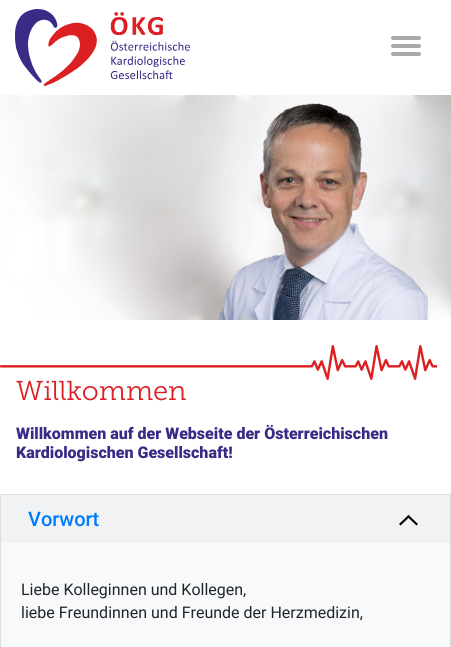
#include <cairo/cairo.h>
#include <math.h>
#include <stddef.h>

static cairo_t *cr;

static void use_color(int r, int g, int b) {
  cairo_set_source_rgb(cr, r / 255.0, g / 255.0, b / 255.0);
}

static void text(double x, double y, const char *s, const char *family, double size, int italic, int bold, int r, int g, int b) {
  cairo_select_font_face(cr, family, italic ? CAIRO_FONT_SLANT_ITALIC : CAIRO_FONT_SLANT_NORMAL,
    bold ? CAIRO_FONT_WEIGHT_BOLD : CAIRO_FONT_WEIGHT_NORMAL);
  cairo_set_font_size(cr, size);
  use_color(r, g, b);
  cairo_move_to(cr, x, y);
  cairo_show_text(cr, s);
}

static void box(double x, double y, double w, double h, int r, int g, int b) {
  use_color(r, g, b);
  cairo_rectangle(cr, x, y, w, h);
  cairo_fill(cr);
}

static void round_rect(double x, double y, double w, double h, double r) {
  cairo_new_sub_path(cr);
  cairo_arc(cr, x + w - r, y + h - r, r, 0, M_PI / 2);
  cairo_arc(cr, x + r, y + h - r, r, M_PI / 2, M_PI);
  cairo_arc(cr, x + r, y + r, r, M_PI, 1.5 * M_PI);
  cairo_arc(cr, x + w - r, y + r, r, 1.5 * M_PI, 2 * M_PI);
  cairo_close_path(cr);
}

static void picture(const char *path, double x, double y, double w, double h) {
  cairo_surface_t *image = cairo_image_surface_create_from_png(path);
  cairo_save(cr);
  cairo_set_source_surface(cr, image, x, y);
  cairo_rectangle(cr, x, y, w, h);
  cairo_fill(cr);
  cairo_restore(cr);
  cairo_surface_destroy(image);
}

static void draw(void) {
  use_color(255, 255, 255);
  cairo_paint(cr);
  picture("img_01.png", 15, 9, 175, 77);
  use_color(169, 169, 169);
  round_rect(391, 52, 30, 4, 2);
  cairo_fill(cr);
  round_rect(391, 36, 30, 4, 2);
  cairo_fill(cr);
  round_rect(391, 44, 30, 4, 2);
  cairo_fill(cr);
  picture("img_02.png", 0, 95, 451, 225);
  picture("img_03.png", 0, 345, 437, 35);
  box(1, 543, 449, 104, 248, 249, 250);
  cairo_rectangle(cr, 0.5, 494.5, 450, 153);
  use_color(221, 221, 221);
  cairo_set_line_width(cr, 1);
  cairo_stroke(cr);
  box(1, 495, 449, 48, 241, 242, 243);
  use_color(0, 0, 0);
  cairo_new_path(cr);
  cairo_move_to(cr, 399, 524);
  cairo_line_to(cr, 408.5, 515);
  cairo_line_to(cr, 410, 516.5);
  cairo_line_to(cr, 400.5, 525.5);
  cairo_close_path(cr);
  cairo_fill(cr);
  cairo_new_path(cr);
  cairo_move_to(cr, 408.5, 515);
  cairo_line_to(cr, 418, 524);
  cairo_line_to(cr, 416.5, 525.5);
  cairo_line_to(cr, 407, 516.5);
  cairo_close_path(cr);
  cairo_fill(cr);
  text(16, 400, "Willkommen", "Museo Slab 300 Light", 27.25, 0, 0, 220, 31, 35);
  text(16, 439, "Willkommen auf der Webseite der Österreichischen", "Roboto Black", 16, 0, 0, 56, 44, 135);
  text(16, 458, "Kardiologischen Gesellschaft!", "Roboto Black", 16, 0, 0, 56, 44, 135);
  text(28, 526, "Vorwort", "Roboto Medium", 20, 0, 0, 0, 123, 255);
  text(21, 595, "Liebe Kolleginnen und Kollegen,", "Roboto", 16, 0, 0, 33, 37, 41);
  text(21, 618, "liebe Freundinnen und Freunde der Herzmedizin,", "Roboto", 16, 0, 0, 33, 37, 41);
}

int main(void) {
  cairo_surface_t *surface = cairo_image_surface_create(CAIRO_FORMAT_RGB24, 451, 647);
  cr = cairo_create(surface);
  cairo_font_options_t *options = cairo_font_options_create();
  cairo_font_options_set_hint_metrics(options, CAIRO_HINT_METRICS_OFF);
  cairo_font_options_set_hint_style(options, CAIRO_HINT_STYLE_NONE);
  cairo_set_font_options(cr, options);
  cairo_set_miter_limit(cr, 4);
  draw();
  cairo_surface_write_to_png(surface, "out.png");
  cairo_font_options_destroy(options);
  cairo_destroy(cr);
  cairo_surface_destroy(surface);
  return 0;
}
